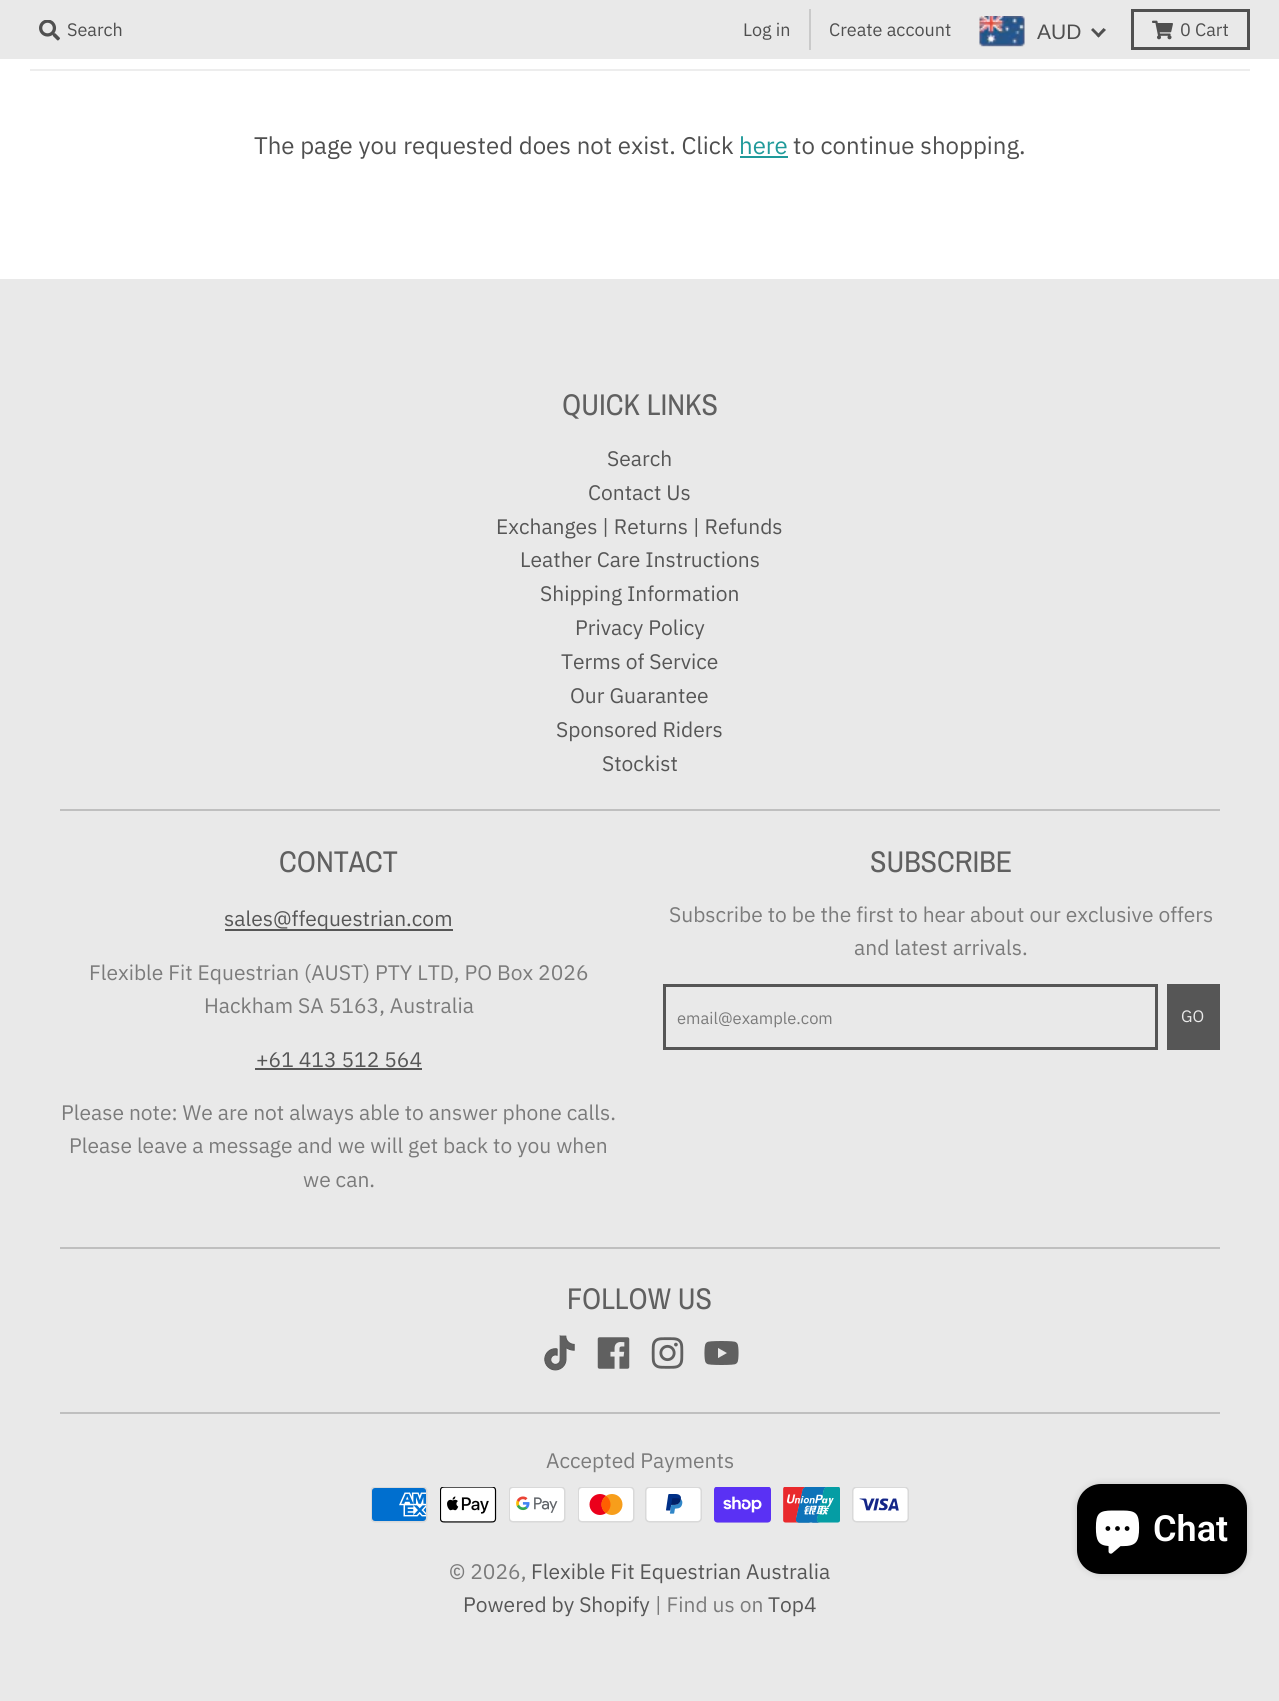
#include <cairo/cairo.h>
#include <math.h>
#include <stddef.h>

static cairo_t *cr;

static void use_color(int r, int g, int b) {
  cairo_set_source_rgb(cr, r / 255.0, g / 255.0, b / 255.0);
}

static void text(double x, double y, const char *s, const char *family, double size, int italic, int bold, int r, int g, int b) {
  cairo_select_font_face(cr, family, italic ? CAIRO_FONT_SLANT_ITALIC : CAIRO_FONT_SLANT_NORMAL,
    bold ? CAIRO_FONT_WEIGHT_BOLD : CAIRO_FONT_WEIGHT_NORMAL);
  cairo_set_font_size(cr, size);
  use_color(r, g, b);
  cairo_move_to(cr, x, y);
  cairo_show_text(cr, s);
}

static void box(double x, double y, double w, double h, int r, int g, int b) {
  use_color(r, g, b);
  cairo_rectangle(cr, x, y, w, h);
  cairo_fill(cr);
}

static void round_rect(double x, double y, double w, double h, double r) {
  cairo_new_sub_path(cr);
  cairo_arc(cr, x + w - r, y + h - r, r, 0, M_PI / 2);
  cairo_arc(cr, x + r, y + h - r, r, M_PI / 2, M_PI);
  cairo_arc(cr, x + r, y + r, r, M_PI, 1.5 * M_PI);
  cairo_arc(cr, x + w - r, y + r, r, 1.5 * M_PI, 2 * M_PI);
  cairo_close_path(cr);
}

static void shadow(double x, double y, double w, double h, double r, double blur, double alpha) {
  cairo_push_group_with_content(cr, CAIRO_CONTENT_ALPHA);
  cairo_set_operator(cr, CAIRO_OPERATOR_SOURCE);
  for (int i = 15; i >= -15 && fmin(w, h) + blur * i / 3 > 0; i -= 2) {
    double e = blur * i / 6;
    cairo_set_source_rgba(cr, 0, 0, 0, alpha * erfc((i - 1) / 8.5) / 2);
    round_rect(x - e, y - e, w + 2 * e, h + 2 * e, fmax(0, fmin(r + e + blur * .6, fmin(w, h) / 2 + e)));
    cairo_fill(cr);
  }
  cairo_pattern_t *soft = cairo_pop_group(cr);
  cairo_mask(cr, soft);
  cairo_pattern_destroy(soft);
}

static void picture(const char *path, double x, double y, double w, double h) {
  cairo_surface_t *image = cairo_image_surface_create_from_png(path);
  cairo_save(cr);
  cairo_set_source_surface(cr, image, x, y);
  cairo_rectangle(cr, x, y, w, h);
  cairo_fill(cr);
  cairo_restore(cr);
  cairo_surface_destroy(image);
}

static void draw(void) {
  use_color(255, 255, 255);
  cairo_paint(cr);
  box(0, 0, 1279, 59, 233, 233, 233);
  picture("img_01.png", 39, 20, 21, 21);
  box(809, 9, 2, 41, 202, 202, 202);
  picture("img_02.png", 979, 16, 46, 31);
  use_color(80, 80, 80);
  cairo_new_path(cr);
  cairo_move_to(cr, 1103.5, 28);
  cairo_line_to(cr, 1106, 30);
  cairo_line_to(cr, 1098.5, 37.5);
  cairo_line_to(cr, 1096.5, 35.5);
  cairo_close_path(cr);
  cairo_fill(cr);
  cairo_new_path(cr);
  cairo_move_to(cr, 1093, 28);
  cairo_line_to(cr, 1100.5, 35.5);
  cairo_line_to(cr, 1098.5, 37.5);
  cairo_line_to(cr, 1091, 30);
  cairo_close_path(cr);
  cairo_fill(cr);
  cairo_rectangle(cr, 1132.5, 10.5, 116, 38);
  cairo_set_line_width(cr, 3);
  cairo_stroke(cr);
  picture("img_03.png", 1152, 20, 21, 20);
  box(30, 69, 1220, 2, 237, 237, 237);
  box(740, 156, 48, 2, 32, 154, 154);
  box(0, 279, 1279, 1422, 233, 233, 233);
  box(60, 809, 1160, 2, 191, 191, 191);
  box(225, 929, 228, 2, 86, 86, 86);
  box(255, 1068, 167, 2, 86, 86, 86);
  cairo_rectangle(cr, 664.5, 985.5, 492, 63);
  cairo_stroke(cr);
  box(1167, 984, 53, 66, 86, 86, 86);
  box(60, 1247, 1160, 2, 191, 191, 191);
  picture("img_04.png", 544, 1335, 31, 36);
  picture("img_05.png", 597, 1337, 33, 32);
  picture("img_06.png", 651, 1337, 33, 32);
  picture("img_07.png", 704, 1341, 35, 24);
  box(60, 1412, 1160, 2, 191, 191, 191);
  picture("img_08.png", 371, 1487, 57, 36);
  picture("img_09.png", 440, 1487, 57, 36);
  picture("img_10.png", 509, 1487, 57, 36);
  picture("img_11.png", 578, 1487, 57, 36);
  picture("img_12.png", 645, 1487, 57, 36);
  picture("img_13.png", 714, 1487, 57, 36);
  picture("img_14.png", 783, 1487, 57, 36);
  picture("img_15.png", 852, 1487, 57, 36);
  use_color(0, 0, 0);
  shadow(1077, 1484, 170, 90, 24, 4, 0.15);
  use_color(0, 0, 0);
  round_rect(1077, 1484, 170, 90, 24);
  cairo_fill(cr);
  picture("img_16.png", 1095, 1510, 45, 44);
  text(67, 36, "Search", "IBM Plex Sans", 18, 0, 0, 79, 79, 79);
  text(743, 36, "Log in", "IBM Plex Sans", 18, 0, 0, 79, 79, 79);
  text(829, 36, "Create account", "IBM Plex Sans", 18, 0, 0, 79, 79, 79);
  text(1037, 39, "AUD", "Liberation Sans", 21, 0, 0, 79, 79, 79);
  text(1180, 36, "0 Cart", "IBM Plex Sans", 18, 0, 0, 79, 79, 79);
  text(254, 154, "The page you requested does not exist. Click", "IBM Plex Sans", 24, 0, 0, 79, 79, 79);
  text(739, 154, "here", "IBM Plex Sans", 24, 0, 0, 32, 154, 154);
  text(793, 154, "to continue shopping.", "IBM Plex Sans", 24, 0, 0, 79, 79, 79);
  text(562, 415, "QUICK LINKS", "Archivo Narrow", 30, 0, 0, 96, 96, 96);
  text(607, 466, "Search", "IBM Plex Sans", 21, 0, 0, 86, 86, 86);
  text(588, 500, "Contact Us", "IBM Plex Sans", 21, 0, 0, 86, 86, 86);
  text(496, 534, "Exchanges | Returns | Refunds", "IBM Plex Sans", 21, 0, 0, 86, 86, 86);
  text(520, 567, "Leather Care Instructions", "IBM Plex Sans", 21, 0, 0, 86, 86, 86);
  text(540, 601, "Shipping Information", "IBM Plex Sans", 21, 0, 0, 86, 86, 86);
  text(575, 635, "Privacy Policy", "IBM Plex Sans", 21, 0, 0, 86, 86, 86);
  text(561, 669, "Terms of Service", "IBM Plex Sans", 21, 0, 0, 86, 86, 86);
  text(570, 703, "Our Guarantee", "IBM Plex Sans", 21, 0, 0, 86, 86, 86);
  text(556, 737, "Sponsored Riders", "IBM Plex Sans", 21, 0, 0, 86, 86, 86);
  text(602, 771, "Stockist", "IBM Plex Sans", 21, 0, 0, 86, 86, 86);
  text(279, 872, "CONTACT", "Archivo Narrow", 30, 0, 0, 96, 96, 96);
  text(224, 926, "sales@ffequestrian.com", "IBM Plex Sans", 21, 0, 0, 86, 86, 86);
  text(89, 980, "Flexible Fit Equestrian (AUST) PTY LTD, PO Box 2026", "IBM Plex Sans", 21, 0, 0, 123, 123, 123);
  text(204, 1013, "Hackham SA 5163, Australia", "IBM Plex Sans", 21, 0, 0, 123, 123, 123);
  text(256, 1067, "+61 413 512 564", "IBM Plex Sans", 21, 0, 0, 86, 86, 86);
  text(61, 1120, "Please note: We are not always able to answer phone calls.", "IBM Plex Sans", 21, 0, 0, 123, 123, 123);
  text(69, 1153, "Please leave a message and we will get back to you when", "IBM Plex Sans", 21, 0, 0, 123, 123, 123);
  text(303, 1187, "we can.", "IBM Plex Sans", 21, 0, 0, 123, 123, 123);
  text(870, 872, "SUBSCRIBE", "Archivo Narrow", 30, 0, 0, 96, 96, 96);
  text(669, 922, "Subscribe to be the first to hear about our exclusive offers", "IBM Plex Sans", 21, 0, 0, 123, 123, 123);
  text(854, 955, "and latest arrivals.", "IBM Plex Sans", 21, 0, 0, 123, 123, 123);
  text(677, 1024, "email@example.com", "IBM Plex Sans", 16.5, 0, 0, 123, 123, 123);
  text(1181, 1022, "GO", "IBM Plex Sans", 16.5, 0, 0, 233, 233, 233);
  text(567, 1309, "FOLLOW US", "Archivo Narrow", 30, 0, 0, 96, 96, 96);
  text(546, 1468, "Accepted Payments", "IBM Plex Sans", 21, 0, 0, 123, 123, 123);
  text(449, 1579, "© 2026,", "IBM Plex Sans", 21, 0, 0, 123, 123, 123);
  text(531, 1579, "Flexible Fit Equestrian Australia", "IBM Plex Sans", 21, 0, 0, 86, 86, 86);
  text(463, 1612, "Powered by Shopify", "IBM Plex Sans", 21, 0, 0, 86, 86, 86);
  text(655, 1612, "| Find us on", "IBM Plex Sans", 21, 0, 0, 123, 123, 123);
  text(768, 1612, "Top4", "IBM Plex Sans", 21, 0, 0, 86, 86, 86);
  text(1153, 1541, "Chat", "Roboto SemiBold", 36, 0, 0, 255, 255, 255);
}

int main(void) {
  cairo_surface_t *surface = cairo_image_surface_create(CAIRO_FORMAT_RGB24, 1279, 1701);
  cr = cairo_create(surface);
  cairo_font_options_t *options = cairo_font_options_create();
  cairo_font_options_set_hint_metrics(options, CAIRO_HINT_METRICS_OFF);
  cairo_font_options_set_hint_style(options, CAIRO_HINT_STYLE_NONE);
  cairo_set_font_options(cr, options);
  cairo_set_miter_limit(cr, 4);
  draw();
  cairo_surface_write_to_png(surface, "out.png");
  cairo_font_options_destroy(options);
  cairo_destroy(cr);
  cairo_surface_destroy(surface);
  return 0;
}
